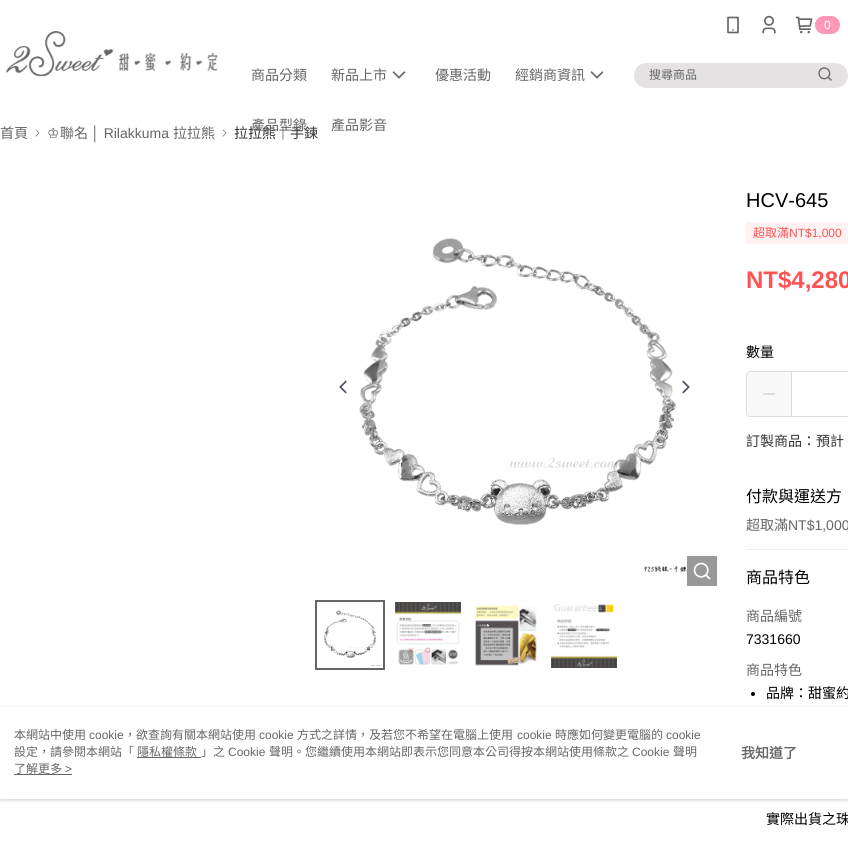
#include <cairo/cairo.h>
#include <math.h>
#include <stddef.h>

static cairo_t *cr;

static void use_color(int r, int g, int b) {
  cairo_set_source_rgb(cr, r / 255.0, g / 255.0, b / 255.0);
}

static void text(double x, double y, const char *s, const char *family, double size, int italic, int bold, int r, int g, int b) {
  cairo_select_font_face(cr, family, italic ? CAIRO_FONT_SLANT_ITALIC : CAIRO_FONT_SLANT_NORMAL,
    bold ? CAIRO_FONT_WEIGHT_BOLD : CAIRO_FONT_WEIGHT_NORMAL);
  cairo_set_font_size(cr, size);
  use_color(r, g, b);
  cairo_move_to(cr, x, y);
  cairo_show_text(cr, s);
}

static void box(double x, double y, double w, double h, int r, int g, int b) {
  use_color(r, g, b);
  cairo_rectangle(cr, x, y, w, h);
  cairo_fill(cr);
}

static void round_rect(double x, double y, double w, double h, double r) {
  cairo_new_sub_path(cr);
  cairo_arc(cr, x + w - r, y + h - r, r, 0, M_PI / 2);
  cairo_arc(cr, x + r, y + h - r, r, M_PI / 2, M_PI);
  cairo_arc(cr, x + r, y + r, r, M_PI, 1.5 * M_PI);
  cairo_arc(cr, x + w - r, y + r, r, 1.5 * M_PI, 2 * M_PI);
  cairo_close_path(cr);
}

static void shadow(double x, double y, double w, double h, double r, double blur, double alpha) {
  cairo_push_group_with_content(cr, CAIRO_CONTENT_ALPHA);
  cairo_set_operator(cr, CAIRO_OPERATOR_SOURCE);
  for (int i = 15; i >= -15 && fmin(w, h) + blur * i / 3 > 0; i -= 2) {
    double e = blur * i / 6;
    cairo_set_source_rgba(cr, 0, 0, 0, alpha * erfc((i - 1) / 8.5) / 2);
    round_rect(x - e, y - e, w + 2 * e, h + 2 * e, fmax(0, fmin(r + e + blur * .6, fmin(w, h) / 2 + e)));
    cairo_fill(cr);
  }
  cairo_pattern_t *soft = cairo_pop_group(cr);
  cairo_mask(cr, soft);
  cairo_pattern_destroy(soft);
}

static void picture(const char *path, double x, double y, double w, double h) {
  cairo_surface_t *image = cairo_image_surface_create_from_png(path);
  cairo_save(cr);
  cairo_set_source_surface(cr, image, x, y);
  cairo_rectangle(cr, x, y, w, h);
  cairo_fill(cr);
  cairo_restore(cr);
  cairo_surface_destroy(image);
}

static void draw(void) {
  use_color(255, 255, 255);
  cairo_paint(cr);
  picture("img_01.png", 6, 31, 212, 46);
  picture("img_02.png", 727, 16, 12, 18);
  picture("img_03.png", 762, 15, 14, 19);
  picture("img_04.png", 795, 16, 18, 18);
  use_color(255, 152, 183);
  round_rect(815, 16, 25, 18, 9);
  cairo_fill(cr);
  picture("img_05.png", 392, 71, 14, 8);
  picture("img_05.png", 590, 71, 14, 8);
  use_color(228, 226, 226);
  round_rect(634, 63, 214, 25, 12.5);
  cairo_fill(cr);
  picture("img_06.png", 818, 67, 14, 14);
  picture("img_07.png", 35, 129, 5, 8);
  picture("img_07.png", 222, 129, 5, 8);
  picture("img_08.png", 339, 380, 8, 14);
  picture("img_09.png", 359, 238, 342, 335);
  box(687, 556, 30, 30, 153, 153, 153);
  picture("img_10.png", 693, 562, 18, 18);
  picture("img_11.png", 682, 380, 8, 14);
  picture("img_12.png", 324, 610, 57, 56);
  cairo_rectangle(cr, 316, 601, 68, 68);
  use_color(102, 102, 102);
  cairo_stroke(cr);
  picture("img_13.png", 395, 602, 66, 63);
  picture("img_14.png", 475, 605, 62, 61);
  picture("img_15.png", 551, 604, 66, 64);
  use_color(255, 242, 242);
  round_rect(746.5, 222.5, 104, 21, 1.5);
  cairo_fill_preserve(cr);
  cairo_set_line_width(cr, 1);
  cairo_stroke(cr);
  round_rect(746.5, 371.5, 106, 45, 3.5);
  use_color(221, 221, 221);
  cairo_stroke(cr);
  cairo_set_source_rgba(cr, 0.945, 0.945, 0.945, 0.4);
  cairo_rectangle(cr, 747, 372, 44, 44);
  cairo_fill(cr);
  box(763, 393, 12, 2, 221, 221, 221);
  box(791, 372, 1, 44, 221, 221, 221);
  box(746, 549, 102, 1, 236, 239, 241);
  use_color(0, 0, 0);
  cairo_arc(cr, 753, 694, 2, 0, 2 * M_PI);
  cairo_fill(cr);
  use_color(151, 151, 151);
  shadow(-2, 708, 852, 92, 4, 2, 0.5);
  use_color(255, 255, 255);
  round_rect(-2, 707, 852, 92, 4);
  cairo_fill(cr);
  box(137, 757, 64, 1, 102, 102, 102);
  box(14, 774, 58, 1, 102, 102, 102);
  text(824, 29, "0", "Liberation Sans", 12, 0, 0, 255, 255, 255);
  text(251, 80, "商品分類", "Noto Sans CJK TC", 14, 0, 0, 102, 102, 102);
  text(331, 80, "新品上市", "Noto Sans CJK TC", 14, 0, 0, 102, 102, 102);
  text(435, 80, "優惠活動", "Noto Sans CJK TC", 14, 0, 0, 102, 102, 102);
  text(515, 80, "經銷商資訊", "Noto Sans CJK TC", 14, 0, 0, 102, 102, 102);
  text(331, 130, "產品影音", "Noto Sans CJK TC", 14, 0, 0, 102, 102, 102);
  text(649, 79, "搜尋商品", "Noto Sans CJK TC", 12, 0, 0, 102, 102, 102);
  text(0, 138, "首頁", "Noto Sans CJK TC", 14, 0, 0, 102, 102, 102);
  text(47, 138, "♔", "DejaVu Sans", 14, 0, 0, 102, 102, 102);
  text(60, 138, "聯名", "Noto Sans CJK TC", 14, 0, 0, 102, 102, 102);
  text(91, 138, "│ Rilakkuma", "Liberation Sans", 14, 0, 0, 102, 102, 102);
  text(173, 138, "拉拉熊", "Noto Sans CJK TC", 14, 0, 0, 102, 102, 102);
  text(234, 138, "拉拉熊｜手鍊", "Noto Sans CJK TC", 14, 0, 0, 51, 51, 51);
  text(251, 130, "產品型錄", "Noto Sans CJK TC", 14, 0, 0, 102, 102, 102);
  text(746, 207, "HCV-645", "Liberation Sans", 20, 0, 0, 0, 0, 0);
  text(753, 237, "超取滿", "Noto Sans CJK TC", 12, 0, 0, 255, 83, 83);
  text(789, 237, "NT$1,000", "Liberation Sans", 12, 0, 0, 255, 83, 83);
  text(746, 288, "NT$4,280", "Liberation Sans", 24, 0, 1, 255, 83, 83);
  text(746, 357, "數量", "Noto Sans CJK TC", 14, 0, 0, 0, 0, 0);
  text(746, 446, "訂製商品：預計", "Noto Sans CJK TC", 14, 0, 0, 51, 51, 51);
  text(746, 502, "付款與運送方", "Noto Sans CJK TC", 16, 0, 0, 0, 0, 0);
  text(746, 530, "超取滿", "Noto Sans CJK TC", 14, 0, 0, 102, 102, 102);
  text(788, 530, "NT$1,000", "Liberation Sans", 14, 0, 0, 102, 102, 102);
  text(746, 583, "商品特色", "Noto Sans CJK TC", 16, 0, 0, 0, 0, 0);
  text(746, 621, "商品編號", "Noto Sans CJK TC", 14, 0, 0, 102, 102, 102);
  text(746, 644, "7331660", "Liberation Sans", 14, 0, 0, 0, 0, 0);
  text(746, 675, "商品特色", "Noto Sans CJK TC", 14, 0, 0, 102, 102, 102);
  text(766, 698, "品牌：甜蜜約", "Noto Sans CJK TC", 14, 0, 0, 0, 0, 0);
  text(766, 824, "實際出貨之珠", "Noto Sans CJK TC", 14, 0, 0, 0, 0, 0);
  text(14, 739, "本網站中使用", "Noto Sans CJK TC", 12, 0, 0, 102, 102, 102);
  text(89, 739, "cookie", "Liberation Sans", 12, 0, 0, 102, 102, 102);
  text(124, 739, "，欲查詢有關本網站使用", "Noto Sans CJK TC", 12, 0, 0, 102, 102, 102);
  text(259, 739, "cookie", "Liberation Sans", 12, 0, 0, 102, 102, 102);
  text(297, 739, "方式之詳情，及若您不希望在電腦上使用", "Noto Sans CJK TC", 12, 0, 0, 102, 102, 102);
  text(517, 739, "cookie", "Liberation Sans", 12, 0, 0, 102, 102, 102);
  text(555, 739, "時應如何變更電腦的", "Noto Sans CJK TC", 12, 0, 0, 102, 102, 102);
  text(666, 739, "cookie", "Liberation Sans", 12, 0, 0, 102, 102, 102);
  text(14, 756, "設定，請參閱本網站「", "Noto Sans CJK TC", 12, 0, 0, 102, 102, 102);
  text(137, 756, "隱私權條款", "Noto Sans CJK TC", 12, 0, 0, 102, 102, 102);
  text(201, 756, "」之", "Noto Sans CJK TC", 12, 0, 0, 102, 102, 102);
  text(228, 756, "Cookie", "Liberation Sans", 12, 0, 0, 102, 102, 102);
  text(269, 756, "聲明。您繼續使用本網站即表示您同意本公司得按本網站使用條款之", "Noto Sans CJK TC", 12, 0, 0, 102, 102, 102);
  text(632, 756, "Cookie", "Liberation Sans", 12, 0, 0, 102, 102, 102);
  text(673, 756, "聲明", "Noto Sans CJK TC", 12, 0, 0, 102, 102, 102);
  text(14, 773, "了解更多", "Noto Sans CJK TC", 12, 0, 0, 102, 102, 102);
  text(65, 773, ">", "Liberation Sans", 12, 0, 0, 102, 102, 102);
  text(741, 758, "我知道了", "Noto Sans CJK TC", 14, 0, 1, 102, 102, 102);
}

int main(void) {
  cairo_surface_t *surface = cairo_image_surface_create(CAIRO_FORMAT_RGB24, 848, 845);
  cr = cairo_create(surface);
  cairo_font_options_t *options = cairo_font_options_create();
  cairo_font_options_set_hint_metrics(options, CAIRO_HINT_METRICS_OFF);
  cairo_font_options_set_hint_style(options, CAIRO_HINT_STYLE_NONE);
  cairo_set_font_options(cr, options);
  cairo_set_miter_limit(cr, 4);
  draw();
  cairo_surface_write_to_png(surface, "out.png");
  cairo_font_options_destroy(options);
  cairo_destroy(cr);
  cairo_surface_destroy(surface);
  return 0;
}
